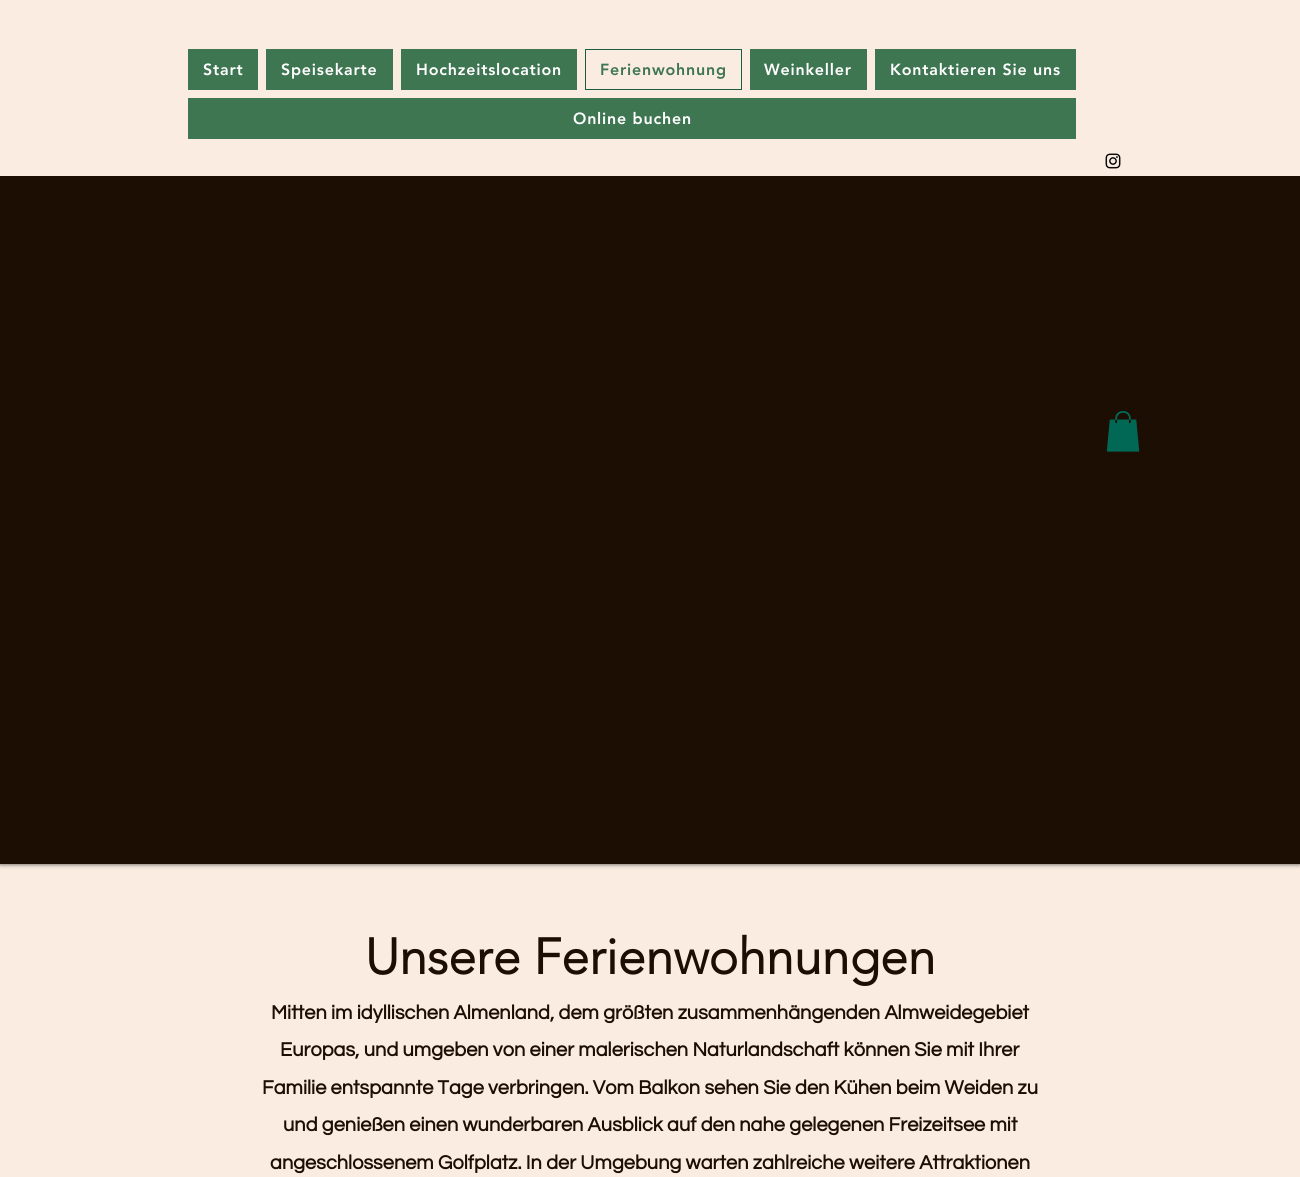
#include <cairo/cairo.h>
#include <math.h>
#include <stddef.h>

static cairo_t *cr;

static void use_color(int r, int g, int b) {
  cairo_set_source_rgb(cr, r / 255.0, g / 255.0, b / 255.0);
}

static void text(double x, double y, const char *s, const char *family, double size, int italic, int bold, int r, int g, int b) {
  cairo_select_font_face(cr, family, italic ? CAIRO_FONT_SLANT_ITALIC : CAIRO_FONT_SLANT_NORMAL,
    bold ? CAIRO_FONT_WEIGHT_BOLD : CAIRO_FONT_WEIGHT_NORMAL);
  cairo_set_font_size(cr, size);
  use_color(r, g, b);
  cairo_move_to(cr, x, y);
  cairo_show_text(cr, s);
}

static void spaced_text(double x, double y, const char *s, double letter, double word) {
  cairo_move_to(cr, x, y);
  while (*s) {
    char ch[5] = {0};
    int n = 0;
    do ch[n++] = *s++; while ((*s & 0xC0) == 0x80);
    cairo_show_text(cr, ch);
    cairo_rel_move_to(cr, letter + word * (*ch == ' '), 0);
  }
}

static void box(double x, double y, double w, double h, int r, int g, int b) {
  use_color(r, g, b);
  cairo_rectangle(cr, x, y, w, h);
  cairo_fill(cr);
}

static void round_rect(double x, double y, double w, double h, double r) {
  cairo_new_sub_path(cr);
  cairo_arc(cr, x + w - r, y + h - r, r, 0, M_PI / 2);
  cairo_arc(cr, x + r, y + h - r, r, M_PI / 2, M_PI);
  cairo_arc(cr, x + r, y + r, r, M_PI, 1.5 * M_PI);
  cairo_arc(cr, x + w - r, y + r, r, 1.5 * M_PI, 2 * M_PI);
  cairo_close_path(cr);
}

static void shadow(double x, double y, double w, double h, double r, double blur, double alpha) {
  cairo_push_group_with_content(cr, CAIRO_CONTENT_ALPHA);
  cairo_set_operator(cr, CAIRO_OPERATOR_SOURCE);
  for (int i = 15; i >= -15 && fmin(w, h) + blur * i / 3 > 0; i -= 2) {
    double e = blur * i / 6;
    cairo_set_source_rgba(cr, 0, 0, 0, alpha * erfc((i - 1) / 8.5) / 2);
    round_rect(x - e, y - e, w + 2 * e, h + 2 * e, fmax(0, fmin(r + e + blur * .6, fmin(w, h) / 2 + e)));
    cairo_fill(cr);
  }
  cairo_pattern_t *soft = cairo_pop_group(cr);
  cairo_mask(cr, soft);
  cairo_pattern_destroy(soft);
}

static void picture(const char *path, double x, double y, double w, double h) {
  cairo_surface_t *image = cairo_image_surface_create_from_png(path);
  cairo_save(cr);
  cairo_set_source_surface(cr, image, x, y);
  cairo_rectangle(cr, x, y, w, h);
  cairo_fill(cr);
  cairo_restore(cr);
  cairo_surface_destroy(image);
}

static void draw(void) {
  use_color(250, 236, 225);
  cairo_paint(cr);
  use_color(0, 0, 0);
  shadow(0, 0, 1300, 864, 0, 2.5, 0.7);
  box(0, 0, 1300, 176, 250, 236, 225);
  box(188, 49, 70, 41, 63, 118, 82);
  box(266, 49, 127, 41, 63, 118, 82);
  box(401, 49, 176, 41, 63, 118, 82);
  cairo_rectangle(cr, 585.5, 49.5, 156, 40);
  use_color(27, 91, 63);
  cairo_set_line_width(cr, 1);
  cairo_stroke(cr);
  box(750, 49, 117, 41, 63, 118, 82);
  box(875, 49, 201, 41, 63, 118, 82);
  box(188, 98, 888, 41, 63, 118, 82);
  picture("img_01.png", 1105, 153, 16, 16);
  box(0, 176, 1300, 688, 29, 14, 3);
  picture("img_02.png", 1106, 411, 34, 41);
  cairo_select_font_face(cr, "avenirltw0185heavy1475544 Black", CAIRO_FONT_SLANT_NORMAL, CAIRO_FONT_WEIGHT_NORMAL);
  cairo_set_font_size(cr, 16);
  use_color(255, 255, 255);
  spaced_text(203, 75, "Start", 0.8, 0);
  spaced_text(281, 75, "Speisekarte", 0.8, 0);
  spaced_text(416, 75, "Hochzeitslocation", 0.8, 0);
  use_color(63, 118, 82);
  spaced_text(600, 75, "Ferienwohnung", 0.8, 0);
  use_color(255, 255, 255);
  spaced_text(764, 75, "Weinkeller", 0.8, 0);
  spaced_text(890, 75, "Kontaktieren Sie uns", 0.8, 0);
  spaced_text(573, 124, "Online buchen", 0.8, 0);
  text(365, 974, "Unsere Ferienwohnungen", "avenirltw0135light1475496", 50, 0, 1, 29, 14, 3);
  text(271, 1019, "Mitten im idyllischen Almenland, dem größten zusammenhängenden Almweidegebiet", "Questrial", 20, 0, 1, 29, 14, 3);
  text(280, 1056, "Europas, und umgeben von einer malerischen Naturlandschaft können Sie mit Ihrer", "Questrial", 20, 0, 1, 29, 14, 3);
  text(262, 1094, "Familie entspannte Tage verbringen. Vom Balkon sehen Sie den Kühen beim Weiden zu", "Questrial", 20, 0, 1, 29, 14, 3);
  text(283, 1131, "und genießen einen wunderbaren Ausblick auf den nahe gelegenen Freizeitsee mit", "Questrial", 20, 0, 1, 29, 14, 3);
  text(270, 1169, "angeschlossenem Golfplatz. In der Umgebung warten zahlreiche weitere Attraktionen", "Questrial", 20, 0, 1, 29, 14, 3);
}

int main(void) {
  cairo_surface_t *surface = cairo_image_surface_create(CAIRO_FORMAT_RGB24, 1300, 1177);
  cr = cairo_create(surface);
  cairo_font_options_t *options = cairo_font_options_create();
  cairo_font_options_set_hint_metrics(options, CAIRO_HINT_METRICS_OFF);
  cairo_font_options_set_hint_style(options, CAIRO_HINT_STYLE_NONE);
  cairo_set_font_options(cr, options);
  cairo_set_miter_limit(cr, 4);
  draw();
  cairo_surface_write_to_png(surface, "out.png");
  cairo_font_options_destroy(options);
  cairo_destroy(cr);
  cairo_surface_destroy(surface);
  return 0;
}
